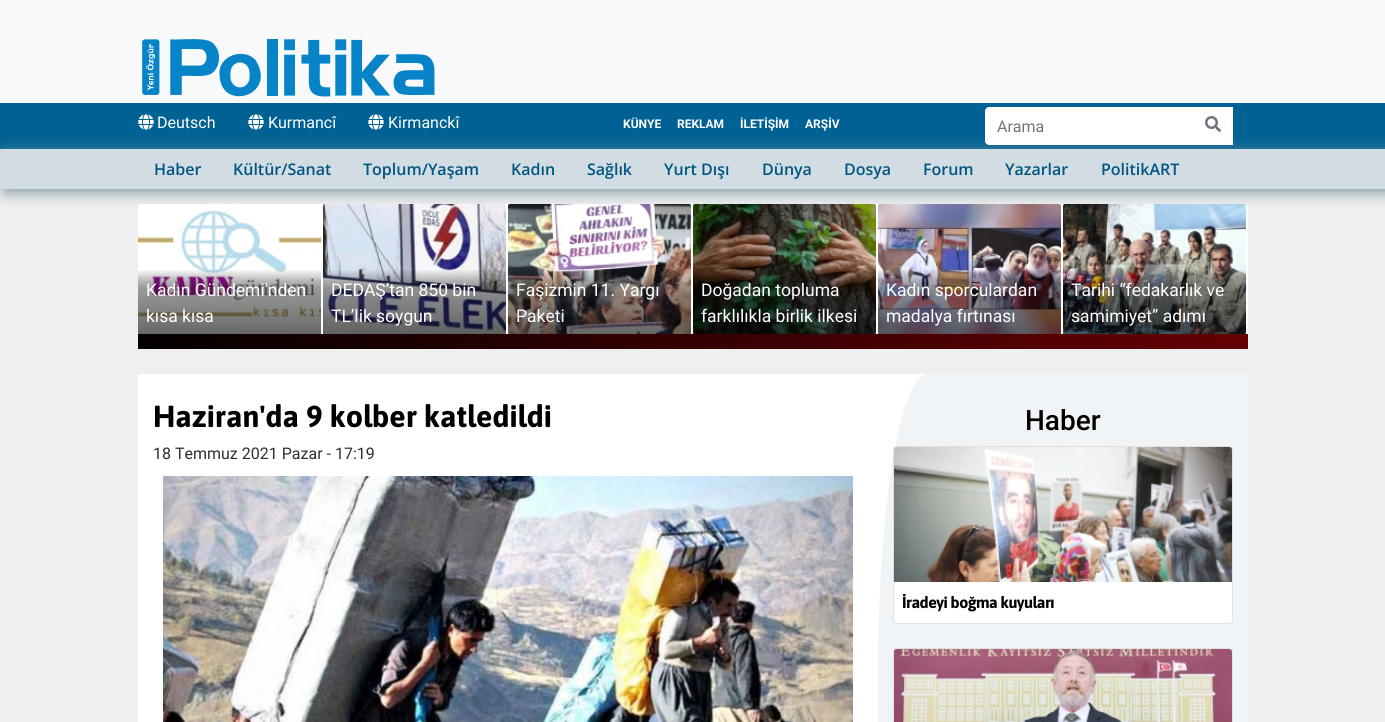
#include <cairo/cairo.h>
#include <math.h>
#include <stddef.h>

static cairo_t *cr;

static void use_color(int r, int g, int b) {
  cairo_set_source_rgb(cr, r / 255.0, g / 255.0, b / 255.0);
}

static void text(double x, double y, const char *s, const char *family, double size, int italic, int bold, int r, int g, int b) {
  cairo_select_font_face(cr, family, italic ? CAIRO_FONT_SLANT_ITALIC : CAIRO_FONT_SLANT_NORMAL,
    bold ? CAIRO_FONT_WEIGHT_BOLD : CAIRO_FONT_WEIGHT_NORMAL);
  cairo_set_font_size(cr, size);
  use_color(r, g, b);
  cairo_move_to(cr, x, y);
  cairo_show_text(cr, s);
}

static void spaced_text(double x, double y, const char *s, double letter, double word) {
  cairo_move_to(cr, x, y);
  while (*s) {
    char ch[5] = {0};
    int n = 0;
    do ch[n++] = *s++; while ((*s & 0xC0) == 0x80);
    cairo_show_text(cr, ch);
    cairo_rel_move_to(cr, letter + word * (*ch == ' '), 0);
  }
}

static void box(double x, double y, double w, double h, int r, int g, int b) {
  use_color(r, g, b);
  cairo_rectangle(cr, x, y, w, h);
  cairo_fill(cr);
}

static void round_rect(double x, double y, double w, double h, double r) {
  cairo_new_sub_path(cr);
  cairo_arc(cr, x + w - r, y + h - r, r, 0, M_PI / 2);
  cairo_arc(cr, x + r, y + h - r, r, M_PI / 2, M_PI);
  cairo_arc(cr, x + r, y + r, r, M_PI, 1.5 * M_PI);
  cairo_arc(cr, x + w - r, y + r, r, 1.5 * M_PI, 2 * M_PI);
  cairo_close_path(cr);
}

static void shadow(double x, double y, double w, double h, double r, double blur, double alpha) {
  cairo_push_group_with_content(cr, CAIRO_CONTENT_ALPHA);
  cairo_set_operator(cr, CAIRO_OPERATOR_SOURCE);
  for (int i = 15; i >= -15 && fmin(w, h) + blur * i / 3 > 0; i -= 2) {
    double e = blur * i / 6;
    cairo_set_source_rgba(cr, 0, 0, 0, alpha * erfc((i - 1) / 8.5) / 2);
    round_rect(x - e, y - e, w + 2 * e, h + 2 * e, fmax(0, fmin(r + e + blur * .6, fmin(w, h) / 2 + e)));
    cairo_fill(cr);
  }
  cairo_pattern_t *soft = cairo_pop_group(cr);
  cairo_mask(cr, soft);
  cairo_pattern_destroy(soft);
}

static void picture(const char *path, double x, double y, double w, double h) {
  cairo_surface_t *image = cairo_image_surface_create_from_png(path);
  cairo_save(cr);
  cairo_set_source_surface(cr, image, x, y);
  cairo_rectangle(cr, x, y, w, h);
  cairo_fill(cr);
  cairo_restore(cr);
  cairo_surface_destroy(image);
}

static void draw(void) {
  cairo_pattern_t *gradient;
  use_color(239, 239, 239);
  cairo_paint(cr);
  box(0, 0, 1385, 103, 248, 249, 250);
  picture("img_01.png", 142, 39, 293, 58);
  box(0, 103, 1385, 46, 0, 98, 148);
  use_color(134, 156, 166);
  shadow(5, 153, 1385, 40, 0, 7.5, 1);
  picture("img_02.png", 138, 114, 16, 16);
  picture("img_02.png", 248, 114, 16, 16);
  picture("img_02.png", 368, 114, 16, 16);
  use_color(255, 255, 255);
  cairo_new_path(cr);
  cairo_move_to(cr, 989, 107);
  cairo_line_to(cr, 1194, 107);
  cairo_line_to(cr, 1194, 145);
  cairo_line_to(cr, 989, 145);
  cairo_curve_to(cr, 987, 145, 985, 143, 985, 141);
  cairo_line_to(cr, 985, 111);
  cairo_curve_to(cr, 985, 109, 987, 107, 989, 107);
  cairo_close_path(cr);
  cairo_fill(cr);
  box(1194, 107, 39, 38, 255, 255, 255);
  picture("img_03.png", 1205, 116, 16, 16);
  box(0, 149, 1385, 40, 209, 220, 227);
  use_color(255, 255, 255);
  round_rect(138, 204, 1110, 145, 5);
  cairo_fill(cr);
  picture("img_04.png", 138, 204, 183, 114);
  gradient = cairo_pattern_create_linear(230, 334, 230, 269);
  cairo_pattern_add_color_stop_rgba(gradient, 0, 0, 0, 0, 0.6);
  cairo_pattern_add_color_stop_rgba(gradient, 0.3, 0, 0, 0, 0.5);
  cairo_pattern_add_color_stop_rgba(gradient, 0.7, 0, 0, 0, 0.4);
  cairo_pattern_add_color_stop_rgba(gradient, 0.8, 0, 0, 0, 0.3);
  cairo_pattern_add_color_stop_rgba(gradient, 1, 0, 0, 0, 0);
  cairo_set_source(cr, gradient);
  cairo_pattern_destroy(gradient);
  cairo_rectangle(cr, 138, 270, 183, 64);
  cairo_fill(cr);
  picture("img_05.png", 323, 204, 183, 130);
  gradient = cairo_pattern_create_linear(415, 334, 415, 269);
  cairo_pattern_add_color_stop_rgba(gradient, 0, 0, 0, 0, 0.6);
  cairo_pattern_add_color_stop_rgba(gradient, 0.3, 0, 0, 0, 0.5);
  cairo_pattern_add_color_stop_rgba(gradient, 0.7, 0, 0, 0, 0.4);
  cairo_pattern_add_color_stop_rgba(gradient, 0.8, 0, 0, 0, 0.3);
  cairo_pattern_add_color_stop_rgba(gradient, 1, 0, 0, 0, 0);
  cairo_set_source(cr, gradient);
  cairo_pattern_destroy(gradient);
  cairo_rectangle(cr, 323, 270, 183, 64);
  cairo_fill(cr);
  picture("img_06.png", 508, 204, 183, 130);
  gradient = cairo_pattern_create_linear(600, 334, 600, 269);
  cairo_pattern_add_color_stop_rgba(gradient, 0, 0, 0, 0, 0.6);
  cairo_pattern_add_color_stop_rgba(gradient, 0.3, 0, 0, 0, 0.5);
  cairo_pattern_add_color_stop_rgba(gradient, 0.7, 0, 0, 0, 0.4);
  cairo_pattern_add_color_stop_rgba(gradient, 0.8, 0, 0, 0, 0.3);
  cairo_pattern_add_color_stop_rgba(gradient, 1, 0, 0, 0, 0);
  cairo_set_source(cr, gradient);
  cairo_pattern_destroy(gradient);
  cairo_rectangle(cr, 508, 270, 183, 64);
  cairo_fill(cr);
  picture("img_07.png", 693, 204, 183, 130);
  gradient = cairo_pattern_create_linear(785, 334, 785, 269);
  cairo_pattern_add_color_stop_rgba(gradient, 0, 0, 0, 0, 0.6);
  cairo_pattern_add_color_stop_rgba(gradient, 0.3, 0, 0, 0, 0.5);
  cairo_pattern_add_color_stop_rgba(gradient, 0.7, 0, 0, 0, 0.4);
  cairo_pattern_add_color_stop_rgba(gradient, 0.8, 0, 0, 0, 0.3);
  cairo_pattern_add_color_stop_rgba(gradient, 1, 0, 0, 0, 0);
  cairo_set_source(cr, gradient);
  cairo_pattern_destroy(gradient);
  cairo_rectangle(cr, 693, 270, 183, 64);
  cairo_fill(cr);
  picture("img_08.png", 878, 204, 183, 130);
  gradient = cairo_pattern_create_linear(970, 334, 970, 269);
  cairo_pattern_add_color_stop_rgba(gradient, 0, 0, 0, 0, 0.6);
  cairo_pattern_add_color_stop_rgba(gradient, 0.3, 0, 0, 0, 0.5);
  cairo_pattern_add_color_stop_rgba(gradient, 0.7, 0, 0, 0, 0.4);
  cairo_pattern_add_color_stop_rgba(gradient, 0.8, 0, 0, 0, 0.3);
  cairo_pattern_add_color_stop_rgba(gradient, 1, 0, 0, 0, 0);
  cairo_set_source(cr, gradient);
  cairo_pattern_destroy(gradient);
  cairo_rectangle(cr, 878, 270, 183, 64);
  cairo_fill(cr);
  picture("img_09.png", 1063, 204, 183, 130);
  gradient = cairo_pattern_create_linear(1155, 334, 1155, 269);
  cairo_pattern_add_color_stop_rgba(gradient, 0, 0, 0, 0, 0.6);
  cairo_pattern_add_color_stop_rgba(gradient, 0.3, 0, 0, 0, 0.5);
  cairo_pattern_add_color_stop_rgba(gradient, 0.7, 0, 0, 0, 0.4);
  cairo_pattern_add_color_stop_rgba(gradient, 0.8, 0, 0, 0, 0.3);
  cairo_pattern_add_color_stop_rgba(gradient, 1, 0, 0, 0, 0);
  cairo_set_source(cr, gradient);
  cairo_pattern_destroy(gradient);
  cairo_rectangle(cr, 1063, 270, 183, 64);
  cairo_fill(cr);
  gradient = cairo_pattern_create_linear(1233, 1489, 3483, -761);
  cairo_pattern_add_color_stop_rgba(gradient, 0, 0, 0, 0, 1);
  cairo_pattern_add_color_stop_rgba(gradient, 0.33, 0.502, 0, 0.02, 1);
  cairo_pattern_add_color_stop_rgba(gradient, 0.67, 1, 0, 0, 1);
  cairo_pattern_add_color_stop_rgba(gradient, 1, 0.502, 0, 0.02, 1);
  cairo_set_source(cr, gradient);
  cairo_pattern_destroy(gradient);
  cairo_rectangle(cr, 138, 334, 1110, 15);
  cairo_fill(cr);
  box(138, 374, 790, 348, 255, 255, 255);
  picture("img_10.png", 163, 476, 690, 246);
  use_color(240, 244, 247);
  cairo_new_path(cr);
  cairo_move_to(cr, 928, 374);
  cairo_line_to(cr, 1248, 374);
  cairo_line_to(cr, 1248, 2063);
  cairo_line_to(cr, 878, 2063);
  cairo_line_to(cr, 878, 674);
  cairo_curve_to(cr, 878, 508, 900, 374, 928, 374);
  cairo_close_path(cr);
  cairo_fill(cr);
  use_color(255, 255, 255);
  round_rect(893, 446, 340, 178, 4);
  cairo_fill(cr);
  round_rect(893.5, 446.5, 339, 177, 3.5);
  cairo_set_source_rgba(cr, 0, 0, 0, 0.12);
  cairo_set_line_width(cr, 1);
  cairo_stroke(cr);
  picture("img_11.png", 894, 447, 338, 135);
  use_color(255, 255, 255);
  round_rect(893, 648, 340, 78, 4);
  cairo_fill(cr);
  round_rect(893.5, 648.5, 339, 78, 3.5);
  cairo_set_source_rgba(cr, 0, 0, 0, 0.12);
  cairo_stroke(cr);
  picture("img_12.png", 894, 649, 338, 73);
  text(157, 128, "Deutsch", "Roboto", 16, 0, 0, 255, 255, 255);
  text(268, 128, "Kurmancî", "Roboto", 16, 0, 0, 255, 255, 255);
  text(388, 128, "Kirmanckî", "Roboto", 16, 0, 0, 255, 255, 255);
  text(623, 128, "KÜNYE", "Roboto", 12, 0, 1, 255, 255, 255);
  text(677, 128, "REKLAM", "Roboto", 12, 0, 1, 255, 255, 255);
  text(740, 128, "İLETİŞİM", "Roboto", 12, 0, 1, 255, 255, 255);
  text(805, 128, "ARŞİV", "Roboto", 12, 0, 1, 255, 255, 255);
  text(997, 132, "Arama", "Roboto", 16, 0, 0, 108, 117, 125);
  text(154, 175, "Haber", "Open Sans SemiBold", 16, 0, 0, 0, 85, 128);
  text(233, 175, "Kültür/Sanat", "Open Sans SemiBold", 16, 0, 0, 0, 85, 128);
  text(363, 175, "Toplum/Yaşam", "Open Sans SemiBold", 16, 0, 0, 0, 85, 128);
  text(511, 175, "Kadın", "Open Sans SemiBold", 16, 0, 0, 0, 85, 128);
  text(587, 175, "Sağlık", "Open Sans SemiBold", 16, 0, 0, 0, 85, 128);
  text(664, 175, "Yurt Dışı", "Open Sans SemiBold", 16, 0, 0, 0, 85, 128);
  text(762, 175, "Dünya", "Open Sans SemiBold", 16, 0, 0, 0, 85, 128);
  text(844, 175, "Dosya", "Open Sans SemiBold", 16, 0, 0, 0, 85, 128);
  text(923, 175, "Forum", "Open Sans SemiBold", 16, 0, 0, 0, 85, 128);
  text(1005, 175, "Yazarlar", "Open Sans SemiBold", 16, 0, 0, 0, 85, 128);
  text(1101, 175, "PolitikART", "Open Sans SemiBold", 16, 0, 0, 0, 85, 128);
  text(146, 296, "Kadın Gündemi'nden", "Roboto", 17.5, 0, 0, 255, 255, 255);
  text(146, 322, "kısa kısa", "Roboto", 17.5, 0, 0, 255, 255, 255);
  text(331, 296, "DEDAŞ’tan 850 bin", "Roboto", 17.5, 0, 0, 255, 255, 255);
  text(331, 322, "TL’lik soygun", "Roboto", 17.5, 0, 0, 255, 255, 255);
  text(516, 296, "Faşizmin 11. Yargı", "Roboto", 17.5, 0, 0, 255, 255, 255);
  text(516, 322, "Paketi", "Roboto", 17.5, 0, 0, 255, 255, 255);
  text(701, 296, "Doğadan topluma", "Roboto", 17.5, 0, 0, 255, 255, 255);
  text(701, 322, "farklılıkla birlik ilkesi", "Roboto", 17.5, 0, 0, 255, 255, 255);
  text(886, 296, "Kadın sporculardan", "Roboto", 17.5, 0, 0, 255, 255, 255);
  text(886, 322, "madalya fırtınası", "Roboto", 17.5, 0, 0, 255, 255, 255);
  text(1071, 296, "Tarihi “fedakarlık ve", "Roboto", 17.5, 0, 0, 255, 255, 255);
  text(1071, 322, "samimiyet” adımı", "Roboto", 17.5, 0, 0, 255, 255, 255);
  text(153, 427, "Haziran'da 9 kolber katledildi", "Asap", 30.4, 0, 1, 0, 0, 0);
  text(153, 459, "18 Temmuz 2021 Pazar - 17:19", "Roboto", 16, 0, 0, 46, 46, 46);
  text(1025, 430, "Haber", "Roboto Medium", 28, 0, 0, 0, 0, 0);
  cairo_select_font_face(cr, "Asap", CAIRO_FONT_SLANT_NORMAL, CAIRO_FONT_WEIGHT_BOLD);
  cairo_set_font_size(cr, 16);
  spaced_text(902, 608, "İradeyi boğma kuyuları", -0.5, 0);
}

int main(void) {
  cairo_surface_t *surface = cairo_image_surface_create(CAIRO_FORMAT_RGB24, 1385, 722);
  cr = cairo_create(surface);
  cairo_font_options_t *options = cairo_font_options_create();
  cairo_font_options_set_hint_metrics(options, CAIRO_HINT_METRICS_OFF);
  cairo_font_options_set_hint_style(options, CAIRO_HINT_STYLE_NONE);
  cairo_set_font_options(cr, options);
  cairo_set_miter_limit(cr, 4);
  draw();
  cairo_surface_write_to_png(surface, "out.png");
  cairo_font_options_destroy(options);
  cairo_destroy(cr);
  cairo_surface_destroy(surface);
  return 0;
}
